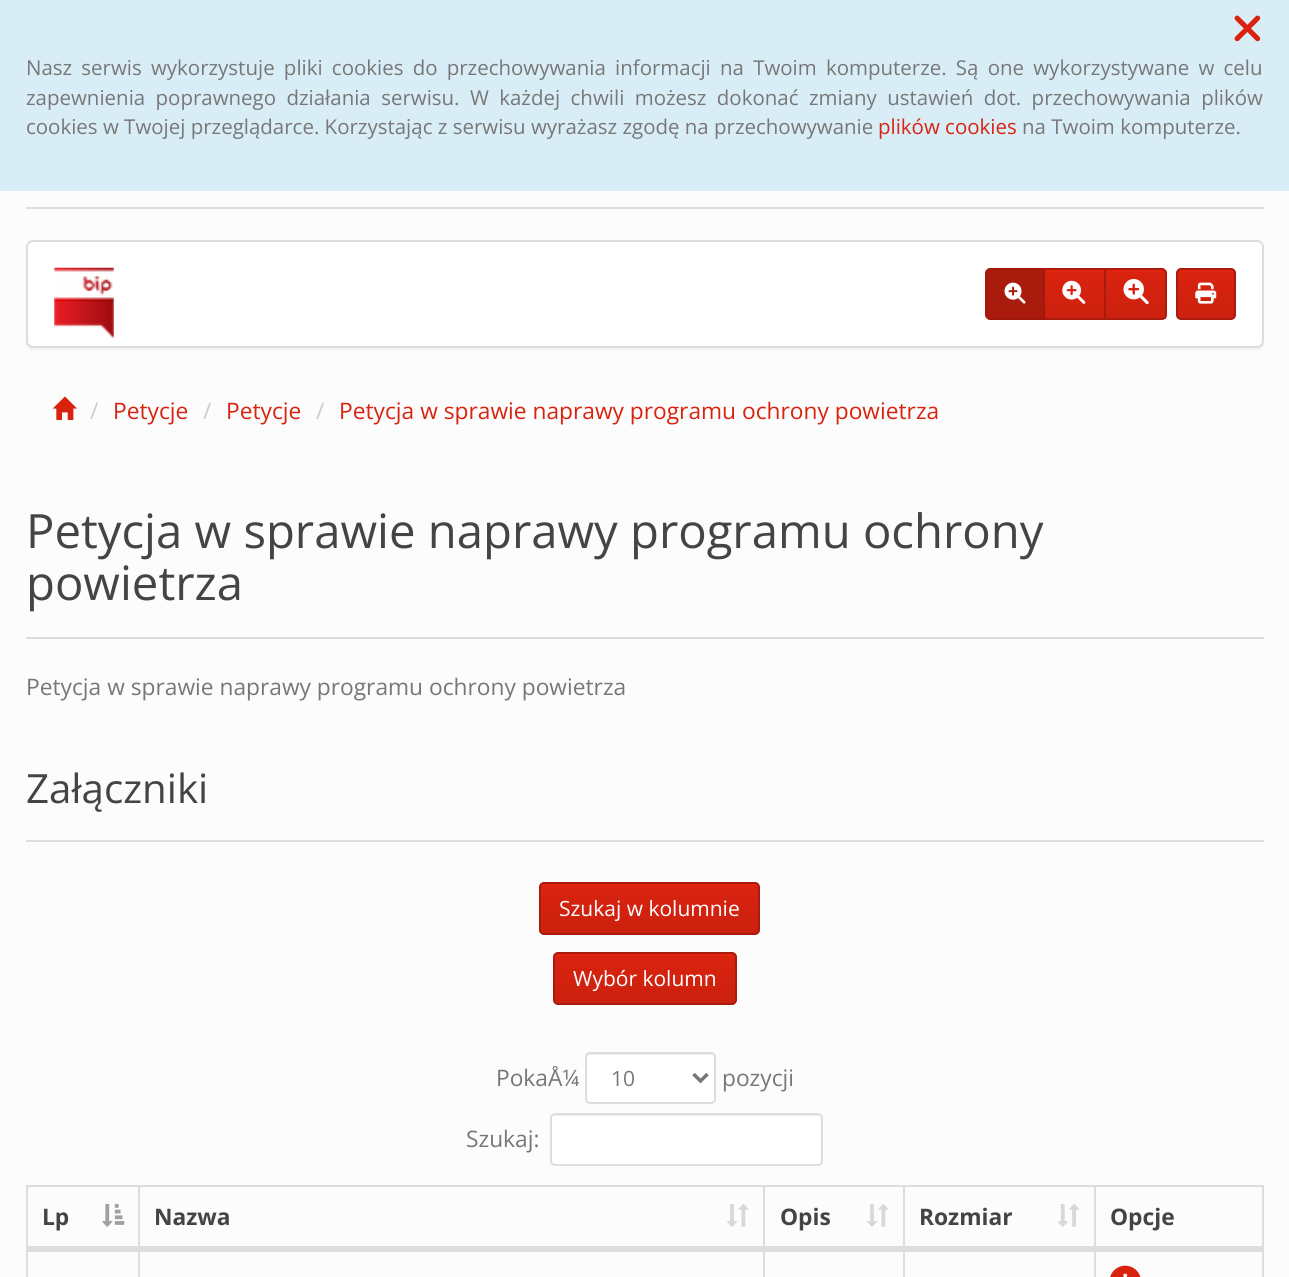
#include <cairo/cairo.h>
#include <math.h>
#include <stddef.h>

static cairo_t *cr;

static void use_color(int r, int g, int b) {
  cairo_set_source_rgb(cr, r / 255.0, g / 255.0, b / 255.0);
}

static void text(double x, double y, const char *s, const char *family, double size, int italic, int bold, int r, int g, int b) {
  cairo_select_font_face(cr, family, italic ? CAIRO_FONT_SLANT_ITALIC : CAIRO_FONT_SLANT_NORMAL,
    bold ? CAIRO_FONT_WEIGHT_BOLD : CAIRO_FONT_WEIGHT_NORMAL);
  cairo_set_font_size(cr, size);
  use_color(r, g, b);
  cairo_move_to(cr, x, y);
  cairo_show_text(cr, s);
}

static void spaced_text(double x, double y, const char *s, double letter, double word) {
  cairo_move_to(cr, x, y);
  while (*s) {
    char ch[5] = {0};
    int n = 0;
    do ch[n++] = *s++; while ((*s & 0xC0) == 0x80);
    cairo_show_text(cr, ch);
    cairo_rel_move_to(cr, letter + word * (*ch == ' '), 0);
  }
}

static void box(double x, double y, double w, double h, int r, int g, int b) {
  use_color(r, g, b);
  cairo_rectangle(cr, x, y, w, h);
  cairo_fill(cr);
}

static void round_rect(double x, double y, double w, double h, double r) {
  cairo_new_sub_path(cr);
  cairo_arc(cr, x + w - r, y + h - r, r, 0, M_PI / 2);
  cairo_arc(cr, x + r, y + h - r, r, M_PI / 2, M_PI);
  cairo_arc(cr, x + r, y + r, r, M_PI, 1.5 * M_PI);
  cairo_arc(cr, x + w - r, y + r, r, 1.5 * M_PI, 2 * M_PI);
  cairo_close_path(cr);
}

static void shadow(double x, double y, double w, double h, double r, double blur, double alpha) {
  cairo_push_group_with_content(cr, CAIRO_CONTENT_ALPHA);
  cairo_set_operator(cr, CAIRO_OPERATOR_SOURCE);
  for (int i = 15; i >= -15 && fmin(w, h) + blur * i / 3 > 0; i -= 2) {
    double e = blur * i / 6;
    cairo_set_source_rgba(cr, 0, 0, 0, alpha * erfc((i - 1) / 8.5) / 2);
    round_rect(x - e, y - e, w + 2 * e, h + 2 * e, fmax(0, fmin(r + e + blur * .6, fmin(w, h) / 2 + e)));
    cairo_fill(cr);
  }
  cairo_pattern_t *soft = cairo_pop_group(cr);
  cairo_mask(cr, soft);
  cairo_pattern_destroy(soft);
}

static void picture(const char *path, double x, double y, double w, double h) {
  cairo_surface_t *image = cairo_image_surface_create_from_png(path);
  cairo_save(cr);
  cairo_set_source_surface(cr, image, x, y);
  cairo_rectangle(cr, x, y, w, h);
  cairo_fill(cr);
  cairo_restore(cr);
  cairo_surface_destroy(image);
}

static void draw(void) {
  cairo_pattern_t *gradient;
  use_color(252, 252, 252);
  cairo_paint(cr);
  box(0, 0, 1289, 191, 217, 237, 247);
  picture("img_01.png", 1234, 15, 27, 27);
  box(26, 207, 1238, 2, 221, 221, 221);
  use_color(0, 0, 0);
  shadow(26, 242, 1238, 108, 7, 1, 0.05);
  use_color(255, 255, 255);
  round_rect(27, 241, 1236, 106, 6);
  cairo_fill_preserve(cr);
  use_color(221, 221, 221);
  cairo_stroke(cr);
  picture("img_02.png", 54, 267, 60, 71);
  gradient = cairo_pattern_create_linear(1075, 270, 1075, 319);
  cairo_pattern_add_color_stop_rgba(gradient, 0, 0.906, 0.145, 0.063, 1);
  cairo_pattern_add_color_stop_rgba(gradient, 0.06, 0.851, 0.137, 0.059, 1);
  cairo_pattern_add_color_stop_rgba(gradient, 1, 0.796, 0.129, 0.055, 1);
  cairo_set_source(cr, gradient);
  cairo_pattern_destroy(gradient);
  cairo_rectangle(cr, 1045, 270, 59, 48);
  cairo_fill(cr);
  cairo_rectangle(cr, 1044, 269, 61, 50);
  use_color(169, 27, 12);
  cairo_stroke(cr);
  cairo_new_path(cr);
  cairo_move_to(cr, 990, 269);
  cairo_line_to(cr, 1044, 269);
  cairo_line_to(cr, 1044, 319);
  cairo_line_to(cr, 990, 319);
  cairo_curve_to(cr, 988, 319, 986, 317, 986, 315);
  cairo_line_to(cr, 986, 273);
  cairo_curve_to(cr, 986, 271, 988, 269, 990, 269);
  cairo_close_path(cr);
  cairo_fill_preserve(cr);
  use_color(160, 26, 11);
  cairo_stroke(cr);
  picture("img_03.png", 1004, 282, 22, 22);
  picture("img_04.png", 1062, 280, 24, 24);
  gradient = cairo_pattern_create_linear(1136, 270, 1136, 319);
  cairo_pattern_add_color_stop_rgba(gradient, 0, 0.906, 0.145, 0.063, 1);
  cairo_pattern_add_color_stop_rgba(gradient, 0.06, 0.851, 0.137, 0.059, 1);
  cairo_pattern_add_color_stop_rgba(gradient, 1, 0.796, 0.129, 0.055, 1);
  cairo_set_source(cr, gradient);
  cairo_pattern_destroy(gradient);
  cairo_rectangle(cr, 1106, 270, 60, 49);
  cairo_fill(cr);
  cairo_new_path(cr);
  cairo_move_to(cr, 1105, 269);
  cairo_line_to(cr, 1162, 269);
  cairo_curve_to(cr, 1164, 269, 1166, 271, 1166, 273);
  cairo_line_to(cr, 1166, 315);
  cairo_curve_to(cr, 1166, 317, 1164, 319, 1162, 319);
  cairo_line_to(cr, 1105, 319);
  cairo_close_path(cr);
  use_color(169, 27, 12);
  cairo_stroke(cr);
  picture("img_05.png", 1123, 278, 26, 27);
  gradient = cairo_pattern_create_linear(1206, 270, 1206, 319);
  cairo_pattern_add_color_stop_rgba(gradient, 0, 0.906, 0.145, 0.063, 1);
  cairo_pattern_add_color_stop_rgba(gradient, 0.06, 0.851, 0.137, 0.059, 1);
  cairo_pattern_add_color_stop_rgba(gradient, 1, 0.796, 0.129, 0.055, 1);
  cairo_set_source(cr, gradient);
  cairo_pattern_destroy(gradient);
  cairo_rectangle(cr, 1178, 270, 56, 48);
  cairo_fill(cr);
  round_rect(1177, 269, 58, 50, 4);
  use_color(169, 27, 12);
  cairo_stroke(cr);
  picture("img_06.png", 1195, 282, 22, 22);
  picture("img_07.png", 52, 396, 25, 24);
  box(26, 637, 1238, 2, 221, 221, 221);
  box(26, 840, 1238, 2, 221, 221, 221);
  gradient = cairo_pattern_create_linear(649, 884, 649, 933);
  cairo_pattern_add_color_stop_rgba(gradient, 0, 0.906, 0.145, 0.063, 1);
  cairo_pattern_add_color_stop_rgba(gradient, 0.06, 0.851, 0.137, 0.059, 1);
  cairo_pattern_add_color_stop_rgba(gradient, 1, 0.796, 0.129, 0.055, 1);
  cairo_set_source(cr, gradient);
  cairo_pattern_destroy(gradient);
  cairo_rectangle(cr, 541, 884, 217, 49);
  cairo_fill(cr);
  round_rect(540, 883, 219, 51, 4);
  use_color(169, 27, 12);
  cairo_stroke(cr);
  gradient = cairo_pattern_create_linear(645, 954, 645, 1003);
  cairo_pattern_add_color_stop_rgba(gradient, 0, 0.906, 0.145, 0.063, 1);
  cairo_pattern_add_color_stop_rgba(gradient, 0.06, 0.851, 0.137, 0.059, 1);
  cairo_pattern_add_color_stop_rgba(gradient, 1, 0.796, 0.129, 0.055, 1);
  cairo_set_source(cr, gradient);
  cairo_pattern_destroy(gradient);
  cairo_rectangle(cr, 555, 954, 180, 49);
  cairo_fill(cr);
  round_rect(554, 953, 182, 51, 4);
  use_color(169, 27, 12);
  cairo_stroke(cr);
  use_color(255, 255, 255);
  round_rect(585, 1052, 131, 52, 5);
  cairo_fill(cr);
  use_color(236, 236, 236);
  cairo_new_path(cr);
  cairo_move_to(cr, 590, 1055);
  cairo_line_to(cr, 710, 1055);
  cairo_curve_to(cr, 712, 1055, 714, 1057, 714, 1059);
  cairo_curve_to(cr, 714, 1049, 692, 1054, 690, 1054);
  cairo_line_to(cr, 610, 1054);
  cairo_curve_to(cr, 608, 1054, 586, 1049, 586, 1059);
  cairo_curve_to(cr, 586, 1057, 588, 1055, 590, 1055);
  cairo_close_path(cr);
  cairo_fill(cr);
  round_rect(586, 1053, 129, 50, 4);
  use_color(221, 221, 221);
  cairo_stroke(cr);
  cairo_new_path(cr);
  cairo_move_to(cr, 693.5, 1074);
  cairo_line_to(cr, 700.5, 1081);
  cairo_line_to(cr, 707.5, 1074);
  use_color(119, 119, 119);
  cairo_set_line_width(cr, 3.5);
  cairo_stroke(cr);
  use_color(255, 255, 255);
  round_rect(550, 1113, 273, 53, 5);
  cairo_fill(cr);
  use_color(236, 236, 236);
  cairo_new_path(cr);
  cairo_move_to(cr, 555, 1116);
  cairo_line_to(cr, 817, 1116);
  cairo_curve_to(cr, 819, 1116, 821, 1118, 821, 1120);
  cairo_curve_to(cr, 821, 1117, 820, 1115, 817, 1115);
  cairo_line_to(cr, 555, 1115);
  cairo_curve_to(cr, 552, 1115, 551, 1117, 551, 1120);
  cairo_curve_to(cr, 551, 1118, 553, 1116, 555, 1116);
  cairo_close_path(cr);
  cairo_fill(cr);
  round_rect(551, 1114, 271, 51, 4);
  use_color(221, 221, 221);
  cairo_set_line_width(cr, 2);
  cairo_stroke(cr);
  cairo_rectangle(cr, 27, 1186, 1236, 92);
  cairo_stroke(cr);
  box(28, 1250, 1234, 2, 221, 221, 221);
  box(138, 1187, 2, 90, 221, 221, 221);
  box(763, 1187, 2, 90, 221, 221, 221);
  box(903, 1187, 2, 90, 221, 221, 221);
  box(1094, 1187, 2, 90, 221, 221, 221);
  picture("img_08.png", 1110, 1265, 31, 12);
  box(28, 1246, 1068, 4, 221, 221, 221);
  picture("img_09.png", 102, 1204, 23, 23);
  picture("img_10.png", 727, 1204, 22, 23);
  picture("img_10.png", 867, 1204, 22, 23);
  picture("img_11.png", 1057, 1204, 23, 23);
  box(1096, 1246, 166, 4, 221, 221, 221);
  cairo_select_font_face(cr, "Open Sans", CAIRO_FONT_SLANT_NORMAL, CAIRO_FONT_WEIGHT_NORMAL);
  cairo_set_font_size(cr, 20.47);
  use_color(119, 119, 119);
  spaced_text(26, 75, "Nasz serwis wykorzystuje pliki cookies do przechowywania informacji na Twoim komputerze. Są one wykorzystywane w celu", 0, 3.9);
  spaced_text(26, 105, "zapewnienia poprawnego działania serwisu. W każdej chwili możesz dokonać zmiany ustawień dot. przechowywania plików", 0, 5.1);
  text(26, 134, "cookies w Twojej przeglądarce. Korzystając z serwisu wyrażasz zgodę na przechowywanie", "Open Sans", 20.47, 0, 0, 119, 119, 119);
  text(878, 134, "plików cookies", "Open Sans", 20.47, 0, 0, 217, 35, 15);
  text(1022, 134, "na Twoim komputerze.", "Open Sans", 20.47, 0, 0, 119, 119, 119);
  text(90, 419, "/", "Open Sans", 22.75, 0, 0, 204, 204, 204);
  text(113, 419, "Petycje", "Open Sans", 22.75, 0, 0, 217, 35, 15);
  text(203, 419, "/", "Open Sans", 22.75, 0, 0, 204, 204, 204);
  text(226, 419, "Petycje", "Open Sans", 22.75, 0, 0, 217, 35, 15);
  text(316, 419, "/", "Open Sans", 22.75, 0, 0, 204, 204, 204);
  text(339, 419, "Petycja w sprawie naprawy programu ochrony powietrza", "Open Sans", 22.75, 0, 0, 217, 35, 15);
  text(26, 548, "Petycja w sprawie naprawy programu ochrony", "Open Sans", 47.25, 0, 0, 68, 68, 68);
  text(26, 600, "powietrza", "Open Sans", 47.25, 0, 0, 68, 68, 68);
  text(26, 695, "Petycja w sprawie naprawy programu ochrony powietrza", "Open Sans", 22.75, 0, 0, 119, 119, 119);
  text(26, 803, "Załączniki", "Open Sans", 40.25, 0, 0, 68, 68, 68);
  text(559, 916, "Szukaj w kolumnie", "Open Sans", 21, 0, 0, 255, 255, 255);
  text(573, 986, "Wybór kolumn", "Open Sans", 21, 0, 0, 255, 255, 255);
  text(496, 1086, "PokaÅ¼", "Open Sans", 22.75, 0, 0, 119, 119, 119);
  text(611, 1086, "10", "Open Sans", 21, 0, 0, 119, 119, 119);
  text(722, 1086, "pozycji", "Open Sans", 22.75, 0, 0, 119, 119, 119);
  text(466, 1147, "Szukaj:", "Open Sans", 22.75, 0, 0, 119, 119, 119);
  text(42, 1225, "Lp", "Open Sans", 22.75, 0, 1, 68, 68, 68);
  text(154, 1225, "Nazwa", "Open Sans", 22.75, 0, 1, 68, 68, 68);
  text(780, 1225, "Opis", "Open Sans", 22.75, 0, 1, 68, 68, 68);
  text(919, 1225, "Rozmiar", "Open Sans", 22.75, 0, 1, 68, 68, 68);
  text(1110, 1225, "Opcje", "Open Sans", 22.75, 0, 1, 68, 68, 68);
}

int main(void) {
  cairo_surface_t *surface = cairo_image_surface_create(CAIRO_FORMAT_RGB24, 1289, 1277);
  cr = cairo_create(surface);
  cairo_font_options_t *options = cairo_font_options_create();
  cairo_font_options_set_hint_metrics(options, CAIRO_HINT_METRICS_OFF);
  cairo_font_options_set_hint_style(options, CAIRO_HINT_STYLE_NONE);
  cairo_set_font_options(cr, options);
  cairo_set_miter_limit(cr, 4);
  draw();
  cairo_surface_write_to_png(surface, "out.png");
  cairo_font_options_destroy(options);
  cairo_destroy(cr);
  cairo_surface_destroy(surface);
  return 0;
}
